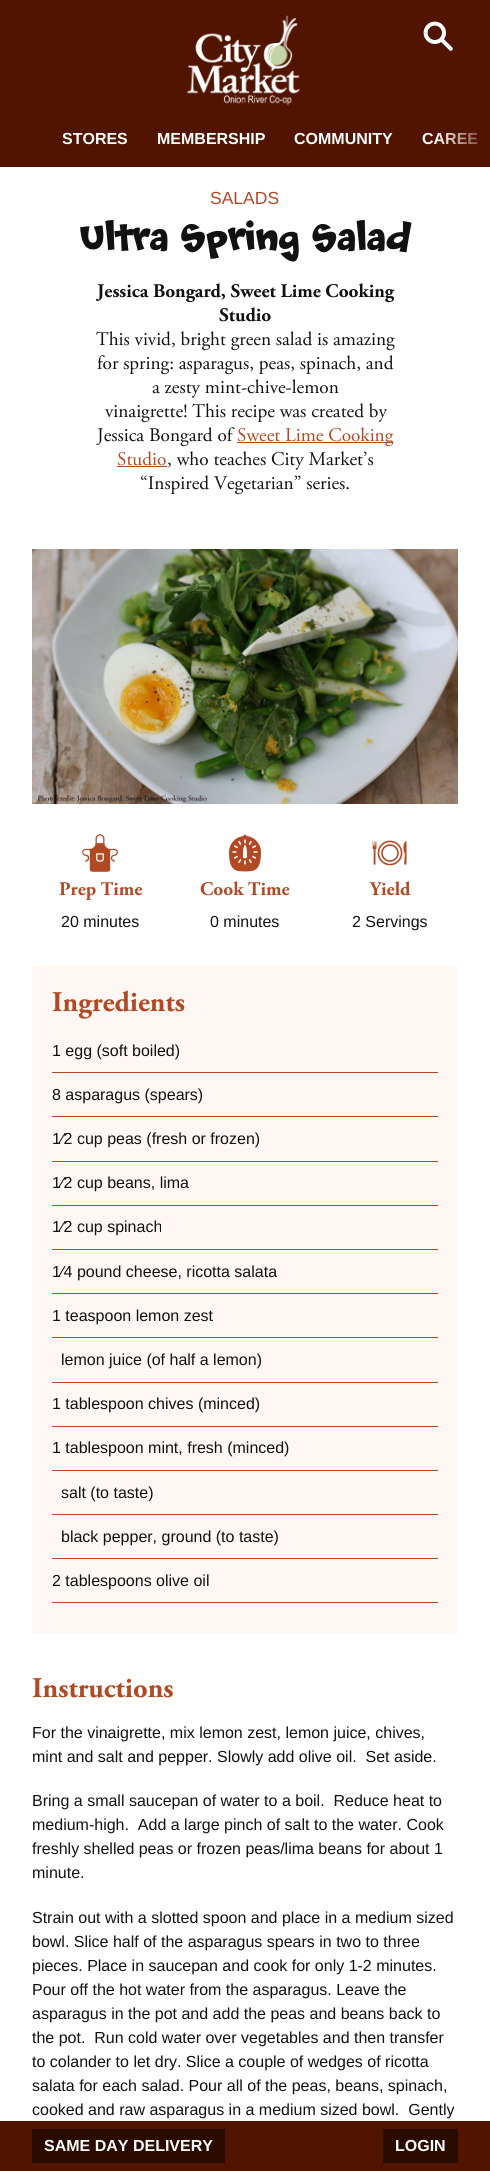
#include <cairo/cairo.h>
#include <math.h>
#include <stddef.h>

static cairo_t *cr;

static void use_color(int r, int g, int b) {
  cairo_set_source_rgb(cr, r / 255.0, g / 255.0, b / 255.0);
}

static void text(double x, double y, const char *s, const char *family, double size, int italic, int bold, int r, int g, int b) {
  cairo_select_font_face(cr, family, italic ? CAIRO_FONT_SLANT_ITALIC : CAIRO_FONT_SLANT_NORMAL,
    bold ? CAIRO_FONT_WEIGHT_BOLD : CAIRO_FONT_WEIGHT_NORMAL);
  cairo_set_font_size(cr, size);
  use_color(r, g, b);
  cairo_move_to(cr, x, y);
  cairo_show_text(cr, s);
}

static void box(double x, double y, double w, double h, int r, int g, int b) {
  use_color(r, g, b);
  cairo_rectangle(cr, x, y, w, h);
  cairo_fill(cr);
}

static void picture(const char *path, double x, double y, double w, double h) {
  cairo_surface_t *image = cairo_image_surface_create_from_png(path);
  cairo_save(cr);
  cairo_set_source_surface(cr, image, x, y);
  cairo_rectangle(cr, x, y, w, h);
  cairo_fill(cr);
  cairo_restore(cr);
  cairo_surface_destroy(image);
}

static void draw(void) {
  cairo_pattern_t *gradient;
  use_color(255, 255, 255);
  cairo_paint(cr);
  box(0, 0, 490, 167, 81, 20, 0);
  picture("img_01.png", 423, 21, 30, 30);
  picture("img_02.png", 187, 15, 113, 91);
  box(237, 442, 156, 1, 177, 73, 37);
  box(117, 466, 50, 1, 177, 73, 37);
  picture("img_03.png", 32, 549, 426, 255);
  picture("img_04.png", 82, 834, 36, 38);
  picture("img_05.png", 229, 834, 32, 38);
  picture("img_06.png", 372, 840, 35, 26);
  box(32, 966, 426, 667, 255, 247, 243);
  box(52, 1072, 386, 1, 177, 73, 37);
  box(52, 1116, 386, 1, 177, 73, 37);
  box(52, 1161, 386, 1, 177, 73, 37);
  box(52, 1205, 386, 1, 177, 73, 37);
  box(52, 1249, 386, 1, 177, 73, 37);
  box(52, 1293, 386, 1, 177, 73, 37);
  box(52, 1337, 386, 1, 177, 73, 37);
  box(52, 1382, 386, 1, 177, 73, 37);
  box(52, 1426, 386, 1, 177, 73, 37);
  box(52, 1470, 386, 1, 177, 73, 37);
  box(52, 1514, 386, 1, 177, 73, 37);
  box(52, 1558, 386, 1, 177, 73, 37);
  box(52, 1602, 386, 1, 177, 73, 37);
  box(0, 2121, 490, 50, 81, 20, 0);
  box(32, 2129, 193, 34, 43, 11, 0);
  box(383, 2129, 75, 34, 43, 11, 0);
  text(62, 144, "STORES", "Liberation Sans", 16, 0, 1, 255, 255, 255);
  text(157, 144, "MEMBERSHIP", "Liberation Sans", 16, 0, 1, 255, 255, 255);
  text(294, 144, "COMMUNITY", "Liberation Sans", 16, 0, 1, 255, 255, 255);
  text(422, 144, "CAREE", "Liberation Sans", 16, 0, 1, 255, 255, 255);
  gradient = cairo_pattern_create_linear(490, 137, 430, 137);
  cairo_pattern_add_color_stop_rgba(gradient, 0, 0.318, 0.078, 0, 0.9);
  cairo_pattern_add_color_stop_rgba(gradient, 0.9, 0.318, 0.078, 0, 0);
  cairo_set_source(cr, gradient);
  cairo_pattern_destroy(gradient);
  cairo_rectangle(cr, 437, 133, 41, 11);
  cairo_fill(cr);
  text(210, 204, "SALADS", "Liberation Sans", 17.5, 0, 0, 177, 73, 37);
  text(79, 249, "Ultra Spring Salad", "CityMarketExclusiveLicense", 44.75, 0, 1, 17, 17, 17);
  text(97, 297, "Jessica Bongard, Sweet Lime Cooking", "Adobe Garamond", 19.25, 0, 1, 17, 17, 17);
  text(219, 321, "Studio", "Adobe Garamond", 19.25, 0, 1, 17, 17, 17);
  text(96, 345, "This vivid, bright green salad is amazing", "Adobe Garamond", 19.25, 0, 0, 17, 17, 17);
  text(97, 369, "for spring: asparagus, peas, spinach, and", "Adobe Garamond", 19.25, 0, 0, 17, 17, 17);
  text(152, 393, "a zesty mint-chive-lemon", "Adobe Garamond", 19.25, 0, 0, 17, 17, 17);
  text(105, 417, "vinaigrette! This recipe was created by", "Adobe Garamond", 19.25, 0, 0, 17, 17, 17);
  text(97, 441, "Jessica Bongard of", "Adobe Garamond", 19.25, 0, 0, 17, 17, 17);
  text(237, 441, "Sweet Lime Cooking", "Adobe Garamond", 19.25, 0, 0, 177, 73, 37);
  text(117, 465, "Studio", "Adobe Garamond", 19.25, 0, 0, 177, 73, 37);
  text(167, 465, ", who teaches City Market’s", "Adobe Garamond", 19.25, 0, 0, 17, 17, 17);
  text(140, 489, "“Inspired Vegetarian” series.", "Adobe Garamond", 19.25, 0, 0, 17, 17, 17);
  text(59, 895, "Prep Time", "Adobe Garamond", 19.25, 0, 1, 177, 73, 37);
  text(61, 927, "20 minutes", "Liberation Sans", 16, 0, 0, 17, 17, 17);
  text(200, 895, "Cook Time", "Adobe Garamond", 19.25, 0, 1, 177, 73, 37);
  text(210, 927, "0 minutes", "Liberation Sans", 16, 0, 0, 17, 17, 17);
  text(370, 895, "Yield", "Adobe Garamond", 19.25, 0, 1, 177, 73, 37);
  text(352, 927, "2 Servings", "Liberation Sans", 16, 0, 0, 17, 17, 17);
  text(52, 1011, "Ingredients", "Adobe Garamond", 28.5, 0, 1, 177, 73, 37);
  text(52, 1056, "1 egg (soft boiled)", "Liberation Sans", 16, 0, 0, 17, 17, 17);
  text(52, 1100, "8 asparagus (spears)", "Liberation Sans", 16, 0, 0, 17, 17, 17);
  text(52, 1144, "1⁄2 cup peas (fresh or frozen)", "Liberation Sans", 16, 0, 0, 17, 17, 17);
  text(52, 1188, "1⁄2 cup beans, lima", "Liberation Sans", 16, 0, 0, 17, 17, 17);
  text(52, 1232, "1⁄2 cup spinach", "Liberation Sans", 16, 0, 0, 17, 17, 17);
  text(52, 1277, "1⁄4 pound cheese, ricotta salata", "Liberation Sans", 16, 0, 0, 17, 17, 17);
  text(52, 1321, "1 teaspoon lemon zest", "Liberation Sans", 16, 0, 0, 17, 17, 17);
  text(61, 1365, "lemon juice (of half a lemon)", "Liberation Sans", 16, 0, 0, 17, 17, 17);
  text(52, 1409, "1 tablespoon chives (minced)", "Liberation Sans", 16, 0, 0, 17, 17, 17);
  text(52, 1453, "1 tablespoon mint, fresh (minced)", "Liberation Sans", 16, 0, 0, 17, 17, 17);
  text(61, 1498, "salt (to taste)", "Liberation Sans", 16, 0, 0, 17, 17, 17);
  text(61, 1542, "black pepper, ground (to taste)", "Liberation Sans", 16, 0, 0, 17, 17, 17);
  text(52, 1586, "2 tablespoons olive oil", "Liberation Sans", 16, 0, 0, 17, 17, 17);
  text(32, 1697, "Instructions", "Adobe Garamond", 28.5, 0, 1, 177, 73, 37);
  text(32, 1738, "For the vinaigrette, mix lemon zest, lemon juice, chives,", "Liberation Sans", 16, 0, 0, 17, 17, 17);
  text(32, 1762, "mint and salt and pepper. Slowly add olive oil.  Set aside.", "Liberation Sans", 16, 0, 0, 17, 17, 17);
  text(32, 1806, "Bring a small saucepan of water to a boil.  Reduce heat to", "Liberation Sans", 16, 0, 0, 17, 17, 17);
  text(32, 1830, "medium-high.  Add a large pinch of salt to the water. Cook", "Liberation Sans", 16, 0, 0, 17, 17, 17);
  text(32, 1854, "freshly shelled peas or frozen peas/lima beans for about 1", "Liberation Sans", 16, 0, 0, 17, 17, 17);
  text(32, 1878, "minute.", "Liberation Sans", 16, 0, 0, 17, 17, 17);
  text(32, 1923, "Strain out with a slotted spoon and place in a medium sized", "Liberation Sans", 16, 0, 0, 17, 17, 17);
  text(32, 1947, "bowl. Slice half of the asparagus spears in two to three", "Liberation Sans", 16, 0, 0, 17, 17, 17);
  text(32, 1971, "pieces. Place in saucepan and cook for only 1-2 minutes.", "Liberation Sans", 16, 0, 0, 17, 17, 17);
  text(32, 1995, "Pour off the hot water from the asparagus. Leave the", "Liberation Sans", 16, 0, 0, 17, 17, 17);
  text(32, 2019, "asparagus in the pot and add the peas and beans back to", "Liberation Sans", 16, 0, 0, 17, 17, 17);
  text(32, 2043, "the pot.  Run cold water over vegetables and then transfer", "Liberation Sans", 16, 0, 0, 17, 17, 17);
  text(32, 2067, "to colander to let dry. Slice a couple of wedges of ricotta", "Liberation Sans", 16, 0, 0, 17, 17, 17);
  text(32, 2091, "salata for each salad. Pour all of the peas, beans, spinach,", "Liberation Sans", 16, 0, 0, 17, 17, 17);
  text(32, 2115, "cooked and raw asparagus in a medium sized bowl.  Gently", "Liberation Sans", 16, 0, 0, 17, 17, 17);
  text(44, 2151, "SAME DAY DELIVERY", "Liberation Sans", 16, 0, 1, 255, 255, 255);
  text(395, 2151, "LOGIN", "Liberation Sans", 16, 0, 1, 255, 255, 255);
}

int main(void) {
  cairo_surface_t *surface = cairo_image_surface_create(CAIRO_FORMAT_RGB24, 490, 2171);
  cr = cairo_create(surface);
  cairo_font_options_t *options = cairo_font_options_create();
  cairo_font_options_set_hint_metrics(options, CAIRO_HINT_METRICS_OFF);
  cairo_font_options_set_hint_style(options, CAIRO_HINT_STYLE_NONE);
  cairo_set_font_options(cr, options);
  cairo_set_miter_limit(cr, 4);
  draw();
  cairo_surface_write_to_png(surface, "out.png");
  cairo_font_options_destroy(options);
  cairo_destroy(cr);
  cairo_surface_destroy(surface);
  return 0;
}
